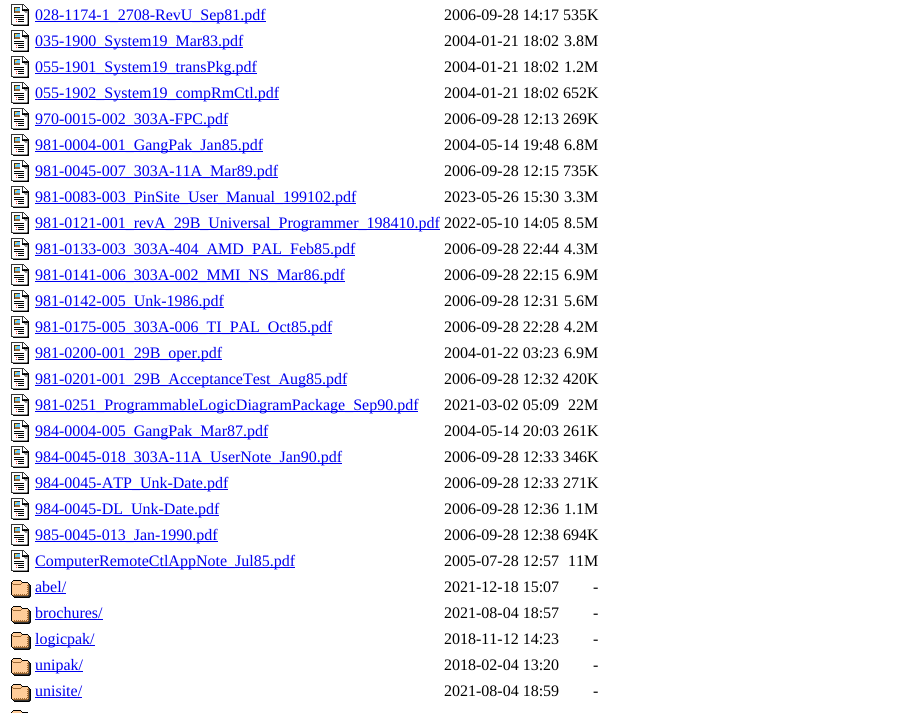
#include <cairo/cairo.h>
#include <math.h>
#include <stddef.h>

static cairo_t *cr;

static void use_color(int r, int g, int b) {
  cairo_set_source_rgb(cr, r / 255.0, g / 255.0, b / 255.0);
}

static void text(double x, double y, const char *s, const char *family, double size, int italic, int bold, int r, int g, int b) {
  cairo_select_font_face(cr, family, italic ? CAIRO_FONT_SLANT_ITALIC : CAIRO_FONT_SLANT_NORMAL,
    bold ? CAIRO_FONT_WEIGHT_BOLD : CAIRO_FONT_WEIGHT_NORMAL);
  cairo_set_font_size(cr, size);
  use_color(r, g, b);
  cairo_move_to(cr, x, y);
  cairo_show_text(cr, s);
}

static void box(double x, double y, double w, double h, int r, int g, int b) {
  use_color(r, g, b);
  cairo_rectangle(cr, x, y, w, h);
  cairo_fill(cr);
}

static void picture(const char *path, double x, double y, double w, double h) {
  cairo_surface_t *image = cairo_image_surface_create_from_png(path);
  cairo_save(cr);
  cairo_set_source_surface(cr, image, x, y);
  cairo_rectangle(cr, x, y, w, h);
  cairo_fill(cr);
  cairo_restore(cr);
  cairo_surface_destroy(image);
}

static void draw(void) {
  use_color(255, 255, 255);
  cairo_paint(cr);
  picture("img_01.png", 11, 4, 18, 22);
  box(35, 21, 231, 1, 0, 0, 238);
  picture("img_01.png", 11, 30, 18, 22);
  box(35, 47, 208, 1, 0, 0, 238);
  picture("img_01.png", 11, 56, 18, 22);
  box(35, 73, 222, 1, 0, 0, 238);
  picture("img_01.png", 11, 82, 18, 22);
  box(35, 99, 244, 1, 0, 0, 238);
  picture("img_01.png", 11, 108, 18, 22);
  box(35, 125, 193, 1, 0, 0, 238);
  picture("img_01.png", 11, 134, 18, 22);
  box(35, 151, 228, 1, 0, 0, 238);
  picture("img_01.png", 11, 160, 18, 22);
  box(35, 177, 243, 1, 0, 0, 238);
  picture("img_01.png", 11, 186, 18, 22);
  box(35, 203, 321, 1, 0, 0, 238);
  picture("img_01.png", 11, 212, 18, 22);
  box(35, 229, 405, 1, 0, 0, 238);
  picture("img_01.png", 11, 238, 18, 22);
  box(35, 255, 320, 1, 0, 0, 238);
  picture("img_01.png", 11, 264, 18, 22);
  box(35, 281, 310, 1, 0, 0, 238);
  picture("img_01.png", 11, 290, 18, 22);
  box(35, 307, 189, 1, 0, 0, 238);
  picture("img_01.png", 11, 316, 18, 22);
  box(35, 333, 297, 1, 0, 0, 238);
  picture("img_01.png", 11, 342, 18, 22);
  box(35, 359, 187, 1, 0, 0, 238);
  picture("img_01.png", 11, 368, 18, 22);
  box(35, 385, 312, 1, 0, 0, 238);
  picture("img_01.png", 11, 394, 18, 22);
  box(35, 411, 383, 1, 0, 0, 238);
  picture("img_01.png", 11, 420, 18, 22);
  box(35, 437, 233, 1, 0, 0, 238);
  picture("img_01.png", 11, 446, 18, 22);
  box(35, 463, 307, 1, 0, 0, 238);
  picture("img_01.png", 11, 472, 18, 22);
  box(35, 489, 193, 1, 0, 0, 238);
  picture("img_01.png", 11, 498, 18, 22);
  box(35, 515, 184, 1, 0, 0, 238);
  picture("img_01.png", 11, 524, 18, 22);
  box(35, 541, 183, 1, 0, 0, 238);
  picture("img_01.png", 11, 550, 18, 22);
  box(35, 567, 260, 1, 0, 0, 238);
  picture("img_02.png", 11, 580, 20, 18);
  box(35, 593, 31, 1, 0, 0, 238);
  picture("img_02.png", 11, 606, 20, 18);
  box(35, 619, 68, 1, 0, 0, 238);
  picture("img_02.png", 11, 632, 20, 18);
  box(35, 645, 60, 1, 0, 0, 238);
  picture("img_02.png", 11, 658, 20, 18);
  box(35, 671, 48, 1, 0, 0, 238);
  picture("img_02.png", 11, 684, 20, 18);
  box(35, 697, 47, 1, 0, 0, 238);
  picture("img_03.png", 11, 710, 17, 3);
  text(35, 20, "028-1174-1_2708-RevU_Sep81.pdf", "Liberation Serif", 16, 0, 0, 0, 0, 238);
  text(444, 20, "2006-09-28 14:17 535K", "Liberation Serif", 16, 0, 0, 0, 0, 0);
  text(35, 46, "035-1900_System19_Mar83.pdf", "Liberation Serif", 16, 0, 0, 0, 0, 238);
  text(444, 46, "2004-01-21 18:02", "Liberation Serif", 16, 0, 0, 0, 0, 0);
  text(564, 46, "3.8M", "Liberation Serif", 16, 0, 0, 0, 0, 0);
  text(35, 72, "055-1901_System19_transPkg.pdf", "Liberation Serif", 16, 0, 0, 0, 0, 238);
  text(444, 72, "2004-01-21 18:02", "Liberation Serif", 16, 0, 0, 0, 0, 0);
  text(564, 72, "1.2M", "Liberation Serif", 16, 0, 0, 0, 0, 0);
  text(35, 98, "055-1902_System19_compRmCtl.pdf", "Liberation Serif", 16, 0, 0, 0, 0, 238);
  text(444, 98, "2004-01-21 18:02 652K", "Liberation Serif", 16, 0, 0, 0, 0, 0);
  text(35, 124, "970-0015-002_303A-FPC.pdf", "Liberation Serif", 16, 0, 0, 0, 0, 238);
  text(444, 124, "2006-09-28 12:13 269K", "Liberation Serif", 16, 0, 0, 0, 0, 0);
  text(35, 150, "981-0004-001_GangPak_Jan85.pdf", "Liberation Serif", 16, 0, 0, 0, 0, 238);
  text(444, 150, "2004-05-14 19:48", "Liberation Serif", 16, 0, 0, 0, 0, 0);
  text(564, 150, "6.8M", "Liberation Serif", 16, 0, 0, 0, 0, 0);
  text(35, 176, "981-0045-007_303A-11A_Mar89.pdf", "Liberation Serif", 16, 0, 0, 0, 0, 238);
  text(444, 176, "2006-09-28 12:15 735K", "Liberation Serif", 16, 0, 0, 0, 0, 0);
  text(35, 202, "981-0083-003_PinSite_User_Manual_199102.pdf", "Liberation Serif", 16, 0, 0, 0, 0, 238);
  text(444, 202, "2023-05-26 15:30", "Liberation Serif", 16, 0, 0, 0, 0, 0);
  text(564, 202, "3.3M", "Liberation Serif", 16, 0, 0, 0, 0, 0);
  text(35, 228, "981-0121-001_revA_29B_Universal_Programmer_198410.pdf", "Liberation Serif", 16, 0, 0, 0, 0, 238);
  text(444, 228, "2022-05-10 14:05", "Liberation Serif", 16, 0, 0, 0, 0, 0);
  text(564, 228, "8.5M", "Liberation Serif", 16, 0, 0, 0, 0, 0);
  text(35, 254, "981-0133-003_303A-404_AMD_PAL_Feb85.pdf", "Liberation Serif", 16, 0, 0, 0, 0, 238);
  text(444, 254, "2006-09-28 22:44", "Liberation Serif", 16, 0, 0, 0, 0, 0);
  text(564, 254, "4.3M", "Liberation Serif", 16, 0, 0, 0, 0, 0);
  text(35, 280, "981-0141-006_303A-002_MMI_NS_Mar86.pdf", "Liberation Serif", 16, 0, 0, 0, 0, 238);
  text(444, 280, "2006-09-28 22:15", "Liberation Serif", 16, 0, 0, 0, 0, 0);
  text(564, 280, "6.9M", "Liberation Serif", 16, 0, 0, 0, 0, 0);
  text(35, 306, "981-0142-005_Unk-1986.pdf", "Liberation Serif", 16, 0, 0, 0, 0, 238);
  text(444, 306, "2006-09-28 12:31", "Liberation Serif", 16, 0, 0, 0, 0, 0);
  text(564, 306, "5.6M", "Liberation Serif", 16, 0, 0, 0, 0, 0);
  text(35, 332, "981-0175-005_303A-006_TI_PAL_Oct85.pdf", "Liberation Serif", 16, 0, 0, 0, 0, 238);
  text(444, 332, "2006-09-28 22:28", "Liberation Serif", 16, 0, 0, 0, 0, 0);
  text(564, 332, "4.2M", "Liberation Serif", 16, 0, 0, 0, 0, 0);
  text(35, 358, "981-0200-001_29B_oper.pdf", "Liberation Serif", 16, 0, 0, 0, 0, 238);
  text(444, 358, "2004-01-22 03:23", "Liberation Serif", 16, 0, 0, 0, 0, 0);
  text(564, 358, "6.9M", "Liberation Serif", 16, 0, 0, 0, 0, 0);
  text(35, 384, "981-0201-001_29B_AcceptanceTest_Aug85.pdf", "Liberation Serif", 16, 0, 0, 0, 0, 238);
  text(444, 384, "2006-09-28 12:32 420K", "Liberation Serif", 16, 0, 0, 0, 0, 0);
  text(35, 410, "981-0251_ProgrammableLogicDiagramPackage_Sep90.pdf", "Liberation Serif", 16, 0, 0, 0, 0, 238);
  text(444, 410, "2021-03-02 05:09", "Liberation Serif", 16, 0, 0, 0, 0, 0);
  text(568, 410, "22M", "Liberation Serif", 16, 0, 0, 0, 0, 0);
  text(35, 436, "984-0004-005_GangPak_Mar87.pdf", "Liberation Serif", 16, 0, 0, 0, 0, 238);
  text(444, 436, "2004-05-14 20:03 261K", "Liberation Serif", 16, 0, 0, 0, 0, 0);
  text(35, 462, "984-0045-018_303A-11A_UserNote_Jan90.pdf", "Liberation Serif", 16, 0, 0, 0, 0, 238);
  text(444, 462, "2006-09-28 12:33 346K", "Liberation Serif", 16, 0, 0, 0, 0, 0);
  text(35, 488, "984-0045-ATP_Unk-Date.pdf", "Liberation Serif", 16, 0, 0, 0, 0, 238);
  text(444, 488, "2006-09-28 12:33 271K", "Liberation Serif", 16, 0, 0, 0, 0, 0);
  text(35, 514, "984-0045-DL_Unk-Date.pdf", "Liberation Serif", 16, 0, 0, 0, 0, 238);
  text(444, 514, "2006-09-28 12:36", "Liberation Serif", 16, 0, 0, 0, 0, 0);
  text(564, 514, "1.1M", "Liberation Serif", 16, 0, 0, 0, 0, 0);
  text(35, 540, "985-0045-013_Jan-1990.pdf", "Liberation Serif", 16, 0, 0, 0, 0, 238);
  text(444, 540, "2006-09-28 12:38 694K", "Liberation Serif", 16, 0, 0, 0, 0, 0);
  text(35, 566, "ComputerRemoteCtlAppNote_Jul85.pdf", "Liberation Serif", 16, 0, 0, 0, 0, 238);
  text(444, 566, "2005-07-28 12:57", "Liberation Serif", 16, 0, 0, 0, 0, 0);
  text(568, 566, "11M", "Liberation Serif", 16, 0, 0, 0, 0, 0);
  text(35, 592, "abel/", "Liberation Serif", 16, 0, 0, 0, 0, 238);
  text(444, 592, "2021-12-18 15:07", "Liberation Serif", 16, 0, 0, 0, 0, 0);
  text(593, 592, "-", "Liberation Serif", 16, 0, 0, 0, 0, 0);
  text(35, 618, "brochures/", "Liberation Serif", 16, 0, 0, 0, 0, 238);
  text(444, 618, "2021-08-04 18:57", "Liberation Serif", 16, 0, 0, 0, 0, 0);
  text(593, 618, "-", "Liberation Serif", 16, 0, 0, 0, 0, 0);
  text(35, 644, "logicpak/", "Liberation Serif", 16, 0, 0, 0, 0, 238);
  text(444, 644, "2018-11-12 14:23", "Liberation Serif", 16, 0, 0, 0, 0, 0);
  text(593, 644, "-", "Liberation Serif", 16, 0, 0, 0, 0, 0);
  text(35, 670, "unipak/", "Liberation Serif", 16, 0, 0, 0, 0, 238);
  text(444, 670, "2018-02-04 13:20", "Liberation Serif", 16, 0, 0, 0, 0, 0);
  text(593, 670, "-", "Liberation Serif", 16, 0, 0, 0, 0, 0);
  text(35, 696, "unisite/", "Liberation Serif", 16, 0, 0, 0, 0, 238);
  text(444, 696, "2021-08-04 18:59", "Liberation Serif", 16, 0, 0, 0, 0, 0);
  text(593, 696, "-", "Liberation Serif", 16, 0, 0, 0, 0, 0);
}

int main(void) {
  cairo_surface_t *surface = cairo_image_surface_create(CAIRO_FORMAT_RGB24, 905, 713);
  cr = cairo_create(surface);
  cairo_font_options_t *options = cairo_font_options_create();
  cairo_font_options_set_hint_metrics(options, CAIRO_HINT_METRICS_OFF);
  cairo_font_options_set_hint_style(options, CAIRO_HINT_STYLE_NONE);
  cairo_set_font_options(cr, options);
  cairo_set_miter_limit(cr, 4);
  draw();
  cairo_surface_write_to_png(surface, "out.png");
  cairo_font_options_destroy(options);
  cairo_destroy(cr);
  cairo_surface_destroy(surface);
  return 0;
}
